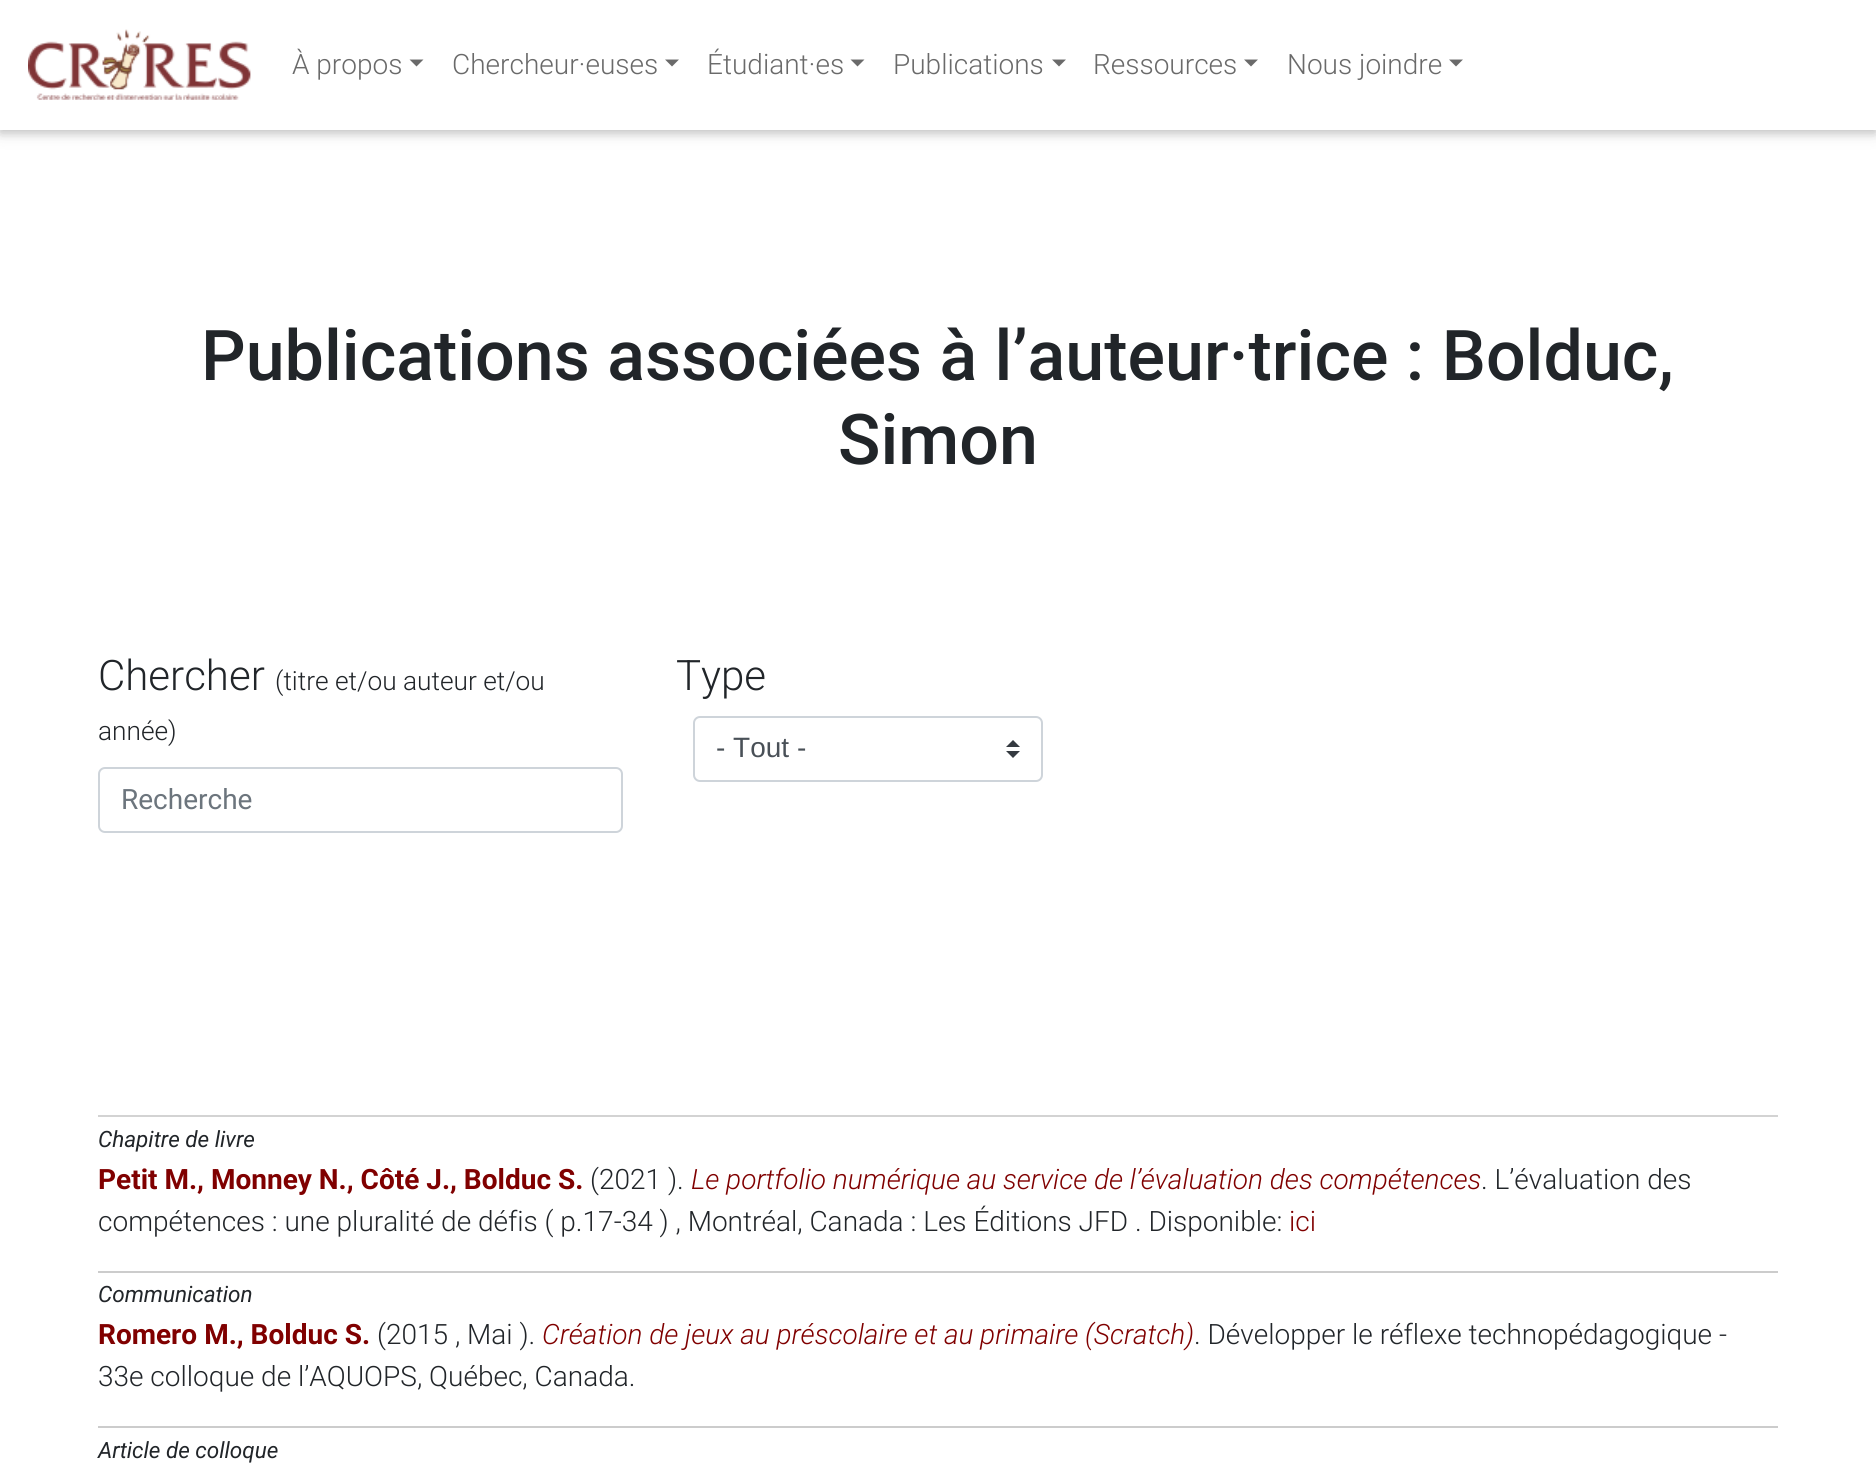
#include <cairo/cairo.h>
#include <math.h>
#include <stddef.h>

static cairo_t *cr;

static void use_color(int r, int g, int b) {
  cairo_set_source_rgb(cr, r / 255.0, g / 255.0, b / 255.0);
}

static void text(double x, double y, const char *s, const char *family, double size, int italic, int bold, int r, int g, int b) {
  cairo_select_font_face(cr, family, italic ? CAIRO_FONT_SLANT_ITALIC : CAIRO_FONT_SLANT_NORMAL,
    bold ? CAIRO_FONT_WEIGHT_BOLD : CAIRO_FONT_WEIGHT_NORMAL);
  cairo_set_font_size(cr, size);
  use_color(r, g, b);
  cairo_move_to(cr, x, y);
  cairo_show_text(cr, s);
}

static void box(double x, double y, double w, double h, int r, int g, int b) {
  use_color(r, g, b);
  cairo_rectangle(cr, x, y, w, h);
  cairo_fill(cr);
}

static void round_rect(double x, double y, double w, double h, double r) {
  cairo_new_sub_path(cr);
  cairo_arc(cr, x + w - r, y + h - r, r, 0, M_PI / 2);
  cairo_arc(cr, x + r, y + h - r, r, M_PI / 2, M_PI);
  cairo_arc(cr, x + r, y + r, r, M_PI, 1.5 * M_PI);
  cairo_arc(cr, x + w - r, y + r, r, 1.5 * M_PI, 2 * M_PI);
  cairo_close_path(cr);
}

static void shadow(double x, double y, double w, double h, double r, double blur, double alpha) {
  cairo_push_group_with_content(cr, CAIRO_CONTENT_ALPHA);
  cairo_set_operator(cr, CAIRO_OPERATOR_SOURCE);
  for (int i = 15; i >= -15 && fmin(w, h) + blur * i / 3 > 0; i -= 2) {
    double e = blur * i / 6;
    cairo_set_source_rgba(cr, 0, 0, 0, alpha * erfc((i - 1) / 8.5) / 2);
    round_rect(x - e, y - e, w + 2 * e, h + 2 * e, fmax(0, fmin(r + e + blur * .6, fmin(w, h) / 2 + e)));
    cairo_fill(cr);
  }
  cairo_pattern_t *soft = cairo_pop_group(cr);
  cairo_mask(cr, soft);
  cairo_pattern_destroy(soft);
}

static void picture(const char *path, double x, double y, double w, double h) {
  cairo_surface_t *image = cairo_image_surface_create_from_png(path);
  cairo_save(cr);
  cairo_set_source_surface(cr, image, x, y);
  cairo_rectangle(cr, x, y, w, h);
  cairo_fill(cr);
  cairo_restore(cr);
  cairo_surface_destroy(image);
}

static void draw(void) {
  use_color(255, 255, 255);
  cairo_paint(cr);
  use_color(0, 0, 0);
  shadow(0, 4, 1876, 129, 0, 9, 0.12);
  shadow(0, 4, 1876, 129, 0, 4.5, 0.16);
  box(0, 0, 1876, 130, 255, 255, 255);
  picture("img_01.png", 28, 29, 223, 71);
  use_color(106, 106, 106);
  cairo_new_path(cr);
  cairo_move_to(cr, 409.5, 59.5);
  cairo_line_to(cr, 423.5, 59.5);
  cairo_line_to(cr, 416.5, 66.5);
  cairo_close_path(cr);
  cairo_fill(cr);
  cairo_new_path(cr);
  cairo_move_to(cr, 665, 59.5);
  cairo_line_to(cr, 679, 59.5);
  cairo_line_to(cr, 672, 66.5);
  cairo_close_path(cr);
  cairo_fill(cr);
  cairo_new_path(cr);
  cairo_move_to(cr, 850.5, 59.5);
  cairo_line_to(cr, 864.5, 59.5);
  cairo_line_to(cr, 857.5, 66.5);
  cairo_close_path(cr);
  cairo_fill(cr);
  cairo_new_path(cr);
  cairo_move_to(cr, 1052, 59.5);
  cairo_line_to(cr, 1066, 59.5);
  cairo_line_to(cr, 1059, 66.5);
  cairo_close_path(cr);
  cairo_fill(cr);
  cairo_new_path(cr);
  cairo_move_to(cr, 1244, 59.5);
  cairo_line_to(cr, 1258, 59.5);
  cairo_line_to(cr, 1251, 66.5);
  cairo_close_path(cr);
  cairo_fill(cr);
  cairo_new_path(cr);
  cairo_move_to(cr, 1449, 59.5);
  cairo_line_to(cr, 1463, 59.5);
  cairo_line_to(cr, 1456, 66.5);
  cairo_close_path(cr);
  cairo_fill(cr);
  round_rect(99, 768, 523, 64, 6);
  use_color(206, 212, 218);
  cairo_stroke(cr);
  use_color(52, 58, 64);
  cairo_new_path(cr);
  cairo_move_to(cr, 1013, 740);
  cairo_line_to(cr, 1006, 747);
  cairo_line_to(cr, 1020, 747);
  cairo_close_path(cr);
  cairo_move_to(cr, 1013, 758);
  cairo_line_to(cr, 1006, 751);
  cairo_line_to(cr, 1020, 751);
  cairo_close_path(cr);
  cairo_fill(cr);
  round_rect(694, 717, 348, 64, 6);
  use_color(206, 212, 218);
  cairo_stroke(cr);
  box(98, 1115, 1680, 2, 211, 211, 211);
  box(98, 1271, 1680, 2, 204, 204, 204);
  box(98, 1426, 1680, 2, 204, 204, 204);
  text(292, 74, "À propos", "Roboto Light", 28, 0, 0, 106, 106, 106);
  text(452, 74, "Chercheur·euses", "Roboto Light", 28, 0, 0, 106, 106, 106);
  text(707, 74, "Étudiant·es", "Roboto Light", 28, 0, 0, 106, 106, 106);
  text(893, 74, "Publications", "Roboto Light", 28, 0, 0, 106, 106, 106);
  text(1093, 74, "Ressources", "Roboto Light", 28, 0, 0, 106, 106, 106);
  text(1287, 74, "Nous joindre", "Roboto Light", 28, 0, 0, 106, 106, 106);
  text(201, 380, "Publications associées à l’auteur·trice : Bolduc,", "Roboto Medium", 70, 0, 0, 33, 37, 41);
  text(838, 464, "Simon", "Roboto Medium", 70, 0, 0, 33, 37, 41);
  text(98, 690, "Chercher", "Roboto Light", 42, 0, 0, 33, 37, 41);
  text(275, 690, "(titre et/ou auteur et/ou", "Roboto Light", 26.25, 0, 0, 33, 37, 41);
  text(98, 740, "année)", "Roboto Light", 26.25, 0, 0, 33, 37, 41);
  text(121, 809, "Recherche", "Roboto", 28, 0, 0, 108, 117, 125);
  text(676, 690, "Type", "Roboto Light", 42, 0, 0, 33, 37, 41);
  text(716, 757, "- Tout -", "Liberation Sans", 28, 0, 0, 73, 80, 87);
  text(98, 1147, "Chapitre de livre", "Roboto", 22.5, 1, 0, 33, 37, 41);
  text(98, 1189, "Petit M., Monney N., Côté J., Bolduc S.", "Roboto", 28, 0, 1, 128, 0, 0);
  text(590, 1189, "(2021 ).", "Roboto Light", 28, 0, 0, 33, 37, 41);
  text(691, 1189, "Le portfolio numérique au service de l’évaluation des compétences", "Roboto Light", 28, 1, 0, 128, 0, 0);
  text(1481, 1189, ". L’évaluation des", "Roboto Light", 28, 0, 0, 33, 37, 41);
  text(98, 1231, "compétences : une pluralité de défis ( p.17-34 ) , Montréal, Canada : Les Éditions JFD . Disponible:", "Roboto Light", 28, 0, 0, 33, 37, 41);
  text(1289, 1231, "ici", "Roboto Light", 28, 0, 0, 128, 0, 0);
  text(98, 1302, "Communication", "Roboto", 22.5, 1, 0, 33, 37, 41);
  text(98, 1344, "Romero M., Bolduc S.", "Roboto", 28, 0, 1, 128, 0, 0);
  text(377, 1344, "(2015 , Mai ).", "Roboto Light", 28, 0, 0, 33, 37, 41);
  text(542, 1344, "Création de jeux au préscolaire et au primaire (Scratch)", "Roboto Light", 28, 1, 0, 128, 0, 0);
  text(1194, 1344, ". Développer le réflexe technopédagogique -", "Roboto Light", 28, 0, 0, 33, 37, 41);
  text(98, 1386, "33e colloque de l’AQUOPS, Québec, Canada.", "Roboto Light", 28, 0, 0, 33, 37, 41);
  text(98, 1458, "Article de colloque", "Roboto", 22.5, 1, 0, 33, 37, 41);
}

int main(void) {
  cairo_surface_t *surface = cairo_image_surface_create(CAIRO_FORMAT_RGB24, 1876, 1467);
  cr = cairo_create(surface);
  cairo_font_options_t *options = cairo_font_options_create();
  cairo_font_options_set_hint_metrics(options, CAIRO_HINT_METRICS_OFF);
  cairo_font_options_set_hint_style(options, CAIRO_HINT_STYLE_NONE);
  cairo_set_font_options(cr, options);
  cairo_set_miter_limit(cr, 4);
  draw();
  cairo_surface_write_to_png(surface, "out.png");
  cairo_font_options_destroy(options);
  cairo_destroy(cr);
  cairo_surface_destroy(surface);
  return 0;
}
